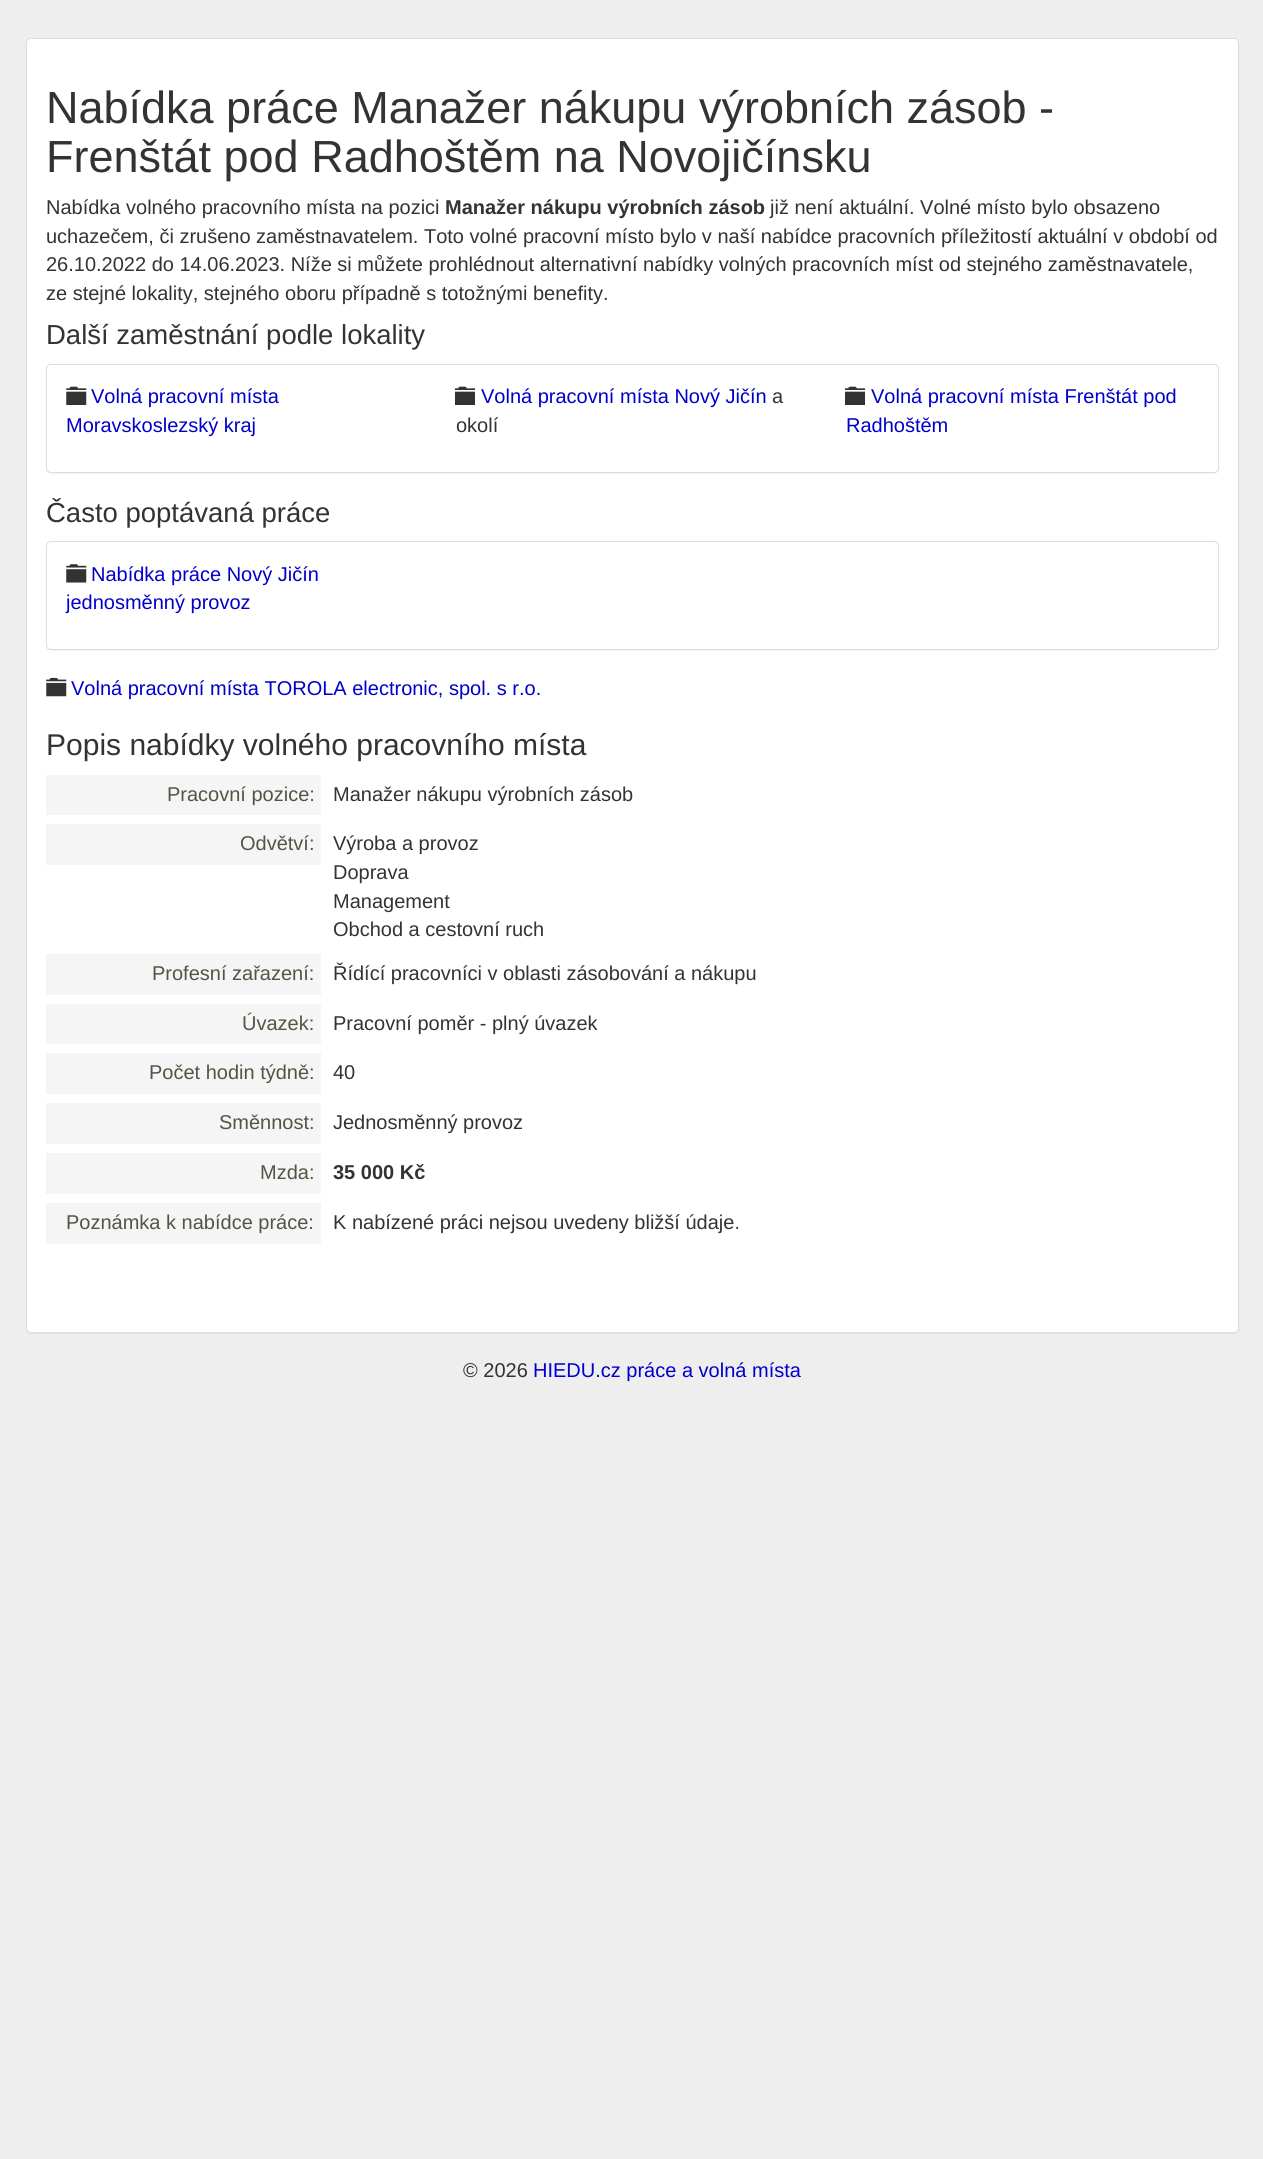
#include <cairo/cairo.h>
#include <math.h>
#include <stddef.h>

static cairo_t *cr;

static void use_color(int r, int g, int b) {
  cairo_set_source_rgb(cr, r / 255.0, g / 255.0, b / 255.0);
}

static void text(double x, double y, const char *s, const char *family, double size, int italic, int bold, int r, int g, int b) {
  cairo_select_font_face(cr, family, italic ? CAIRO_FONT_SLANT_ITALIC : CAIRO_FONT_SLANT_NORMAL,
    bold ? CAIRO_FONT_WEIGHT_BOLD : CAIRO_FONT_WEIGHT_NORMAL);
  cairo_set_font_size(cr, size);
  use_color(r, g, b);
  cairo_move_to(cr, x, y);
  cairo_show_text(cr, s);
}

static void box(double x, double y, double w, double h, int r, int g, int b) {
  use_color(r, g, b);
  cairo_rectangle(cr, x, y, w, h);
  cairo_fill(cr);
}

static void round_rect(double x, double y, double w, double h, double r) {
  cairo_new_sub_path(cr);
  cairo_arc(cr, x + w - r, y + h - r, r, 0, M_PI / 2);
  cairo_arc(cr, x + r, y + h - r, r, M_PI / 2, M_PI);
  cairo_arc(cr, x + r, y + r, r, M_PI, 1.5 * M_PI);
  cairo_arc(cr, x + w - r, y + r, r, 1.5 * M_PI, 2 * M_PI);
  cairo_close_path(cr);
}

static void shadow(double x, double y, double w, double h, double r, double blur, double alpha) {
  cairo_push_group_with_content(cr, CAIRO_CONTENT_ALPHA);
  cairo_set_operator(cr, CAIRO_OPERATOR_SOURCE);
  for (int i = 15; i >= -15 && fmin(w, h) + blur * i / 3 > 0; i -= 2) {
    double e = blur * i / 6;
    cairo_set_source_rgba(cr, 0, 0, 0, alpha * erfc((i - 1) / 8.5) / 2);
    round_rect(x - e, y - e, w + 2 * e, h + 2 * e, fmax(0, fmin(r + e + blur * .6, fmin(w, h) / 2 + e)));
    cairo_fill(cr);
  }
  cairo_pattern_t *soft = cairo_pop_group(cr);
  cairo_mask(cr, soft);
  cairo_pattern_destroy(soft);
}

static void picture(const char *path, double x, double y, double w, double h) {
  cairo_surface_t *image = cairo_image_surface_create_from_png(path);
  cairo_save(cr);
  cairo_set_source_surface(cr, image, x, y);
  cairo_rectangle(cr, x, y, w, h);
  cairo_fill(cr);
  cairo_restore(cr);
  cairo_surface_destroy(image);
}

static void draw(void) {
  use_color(238, 238, 238);
  cairo_paint(cr);
  use_color(0, 0, 0);
  shadow(26, 39, 1213, 1295, 5, 0.5, 0.05);
  use_color(255, 255, 255);
  round_rect(26.5, 38.5, 1212, 1294, 4.5);
  cairo_fill_preserve(cr);
  use_color(221, 221, 221);
  cairo_set_line_width(cr, 1);
  cairo_stroke(cr);
  use_color(0, 0, 0);
  shadow(46, 365, 1173, 109, 5, 0.5, 0.05);
  use_color(255, 255, 255);
  round_rect(46.5, 364.5, 1172, 108, 4.5);
  cairo_fill_preserve(cr);
  use_color(221, 221, 221);
  cairo_stroke(cr);
  picture("img_01.png", 66, 386, 21, 19);
  picture("img_02.png", 455, 386, 20, 19);
  picture("img_02.png", 845, 386, 20, 19);
  use_color(0, 0, 0);
  shadow(46, 543, 1173, 108, 5, 0.5, 0.05);
  use_color(255, 255, 255);
  round_rect(46.5, 541.5, 1172, 108, 4.5);
  cairo_fill_preserve(cr);
  use_color(221, 221, 221);
  cairo_stroke(cr);
  picture("img_03.png", 66, 564, 21, 19);
  picture("img_04.png", 46, 677, 21, 20);
  box(46, 775, 275, 40, 245, 245, 245);
  box(46, 824, 275, 41, 245, 245, 245);
  box(46, 954, 275, 41, 245, 245, 245);
  box(46, 1004, 275, 40, 245, 245, 245);
  box(46, 1053, 275, 41, 245, 245, 245);
  box(46, 1103, 275, 41, 245, 245, 245);
  box(46, 1153, 275, 41, 245, 245, 245);
  box(46, 1203, 275, 41, 245, 245, 245);
  text(46, 123, "Nabídka práce Manažer nákupu výrobních zásob -", "Liberation Sans", 45, 0, 0, 51, 51, 51);
  text(46, 172, "Frenštát pod Radhoštěm na Novojičínsku", "Liberation Sans", 45, 0, 0, 51, 51, 51);
  text(46, 214, "Nabídka volného pracovního místa na pozici", "Liberation Sans", 20, 0, 0, 51, 51, 51);
  text(445, 214, "Manažer nákupu výrobních zásob", "Liberation Sans", 20, 0, 1, 51, 51, 51);
  text(770, 214, "již není aktuální. Volné místo bylo obsazeno", "Liberation Sans", 20, 0, 0, 51, 51, 51);
  text(46, 243, "uchazečem, či zrušeno zaměstnavatelem. Toto volné pracovní místo bylo v naší nabídce pracovních příležitostí aktuální v období od", "Liberation Sans", 20, 0, 0, 51, 51, 51);
  text(46, 271, "26.10.2022 do 14.06.2023. Níže si můžete prohlédnout alternativní nabídky volných pracovních míst od stejného zaměstnavatele,", "Liberation Sans", 20, 0, 0, 51, 51, 51);
  text(46, 300, "ze stejné lokality, stejného oboru případně s totožnými benefity.", "Liberation Sans", 20, 0, 0, 51, 51, 51);
  text(46, 344, "Další zaměstnání podle lokality", "Liberation Sans", 27.5, 0, 0, 51, 51, 51);
  text(91, 403, "Volná pracovní místa", "Liberation Sans", 20, 0, 0, 0, 0, 204);
  text(66, 432, "Moravskoslezský kraj", "Liberation Sans", 20, 0, 0, 0, 0, 204);
  text(481, 403, "Volná pracovní místa Nový Jičín", "Liberation Sans", 20, 0, 0, 0, 0, 204);
  text(772, 403, "a", "Liberation Sans", 20, 0, 0, 51, 51, 51);
  text(456, 432, "okolí", "Liberation Sans", 20, 0, 0, 51, 51, 51);
  text(871, 403, "Volná pracovní místa Frenštát pod", "Liberation Sans", 20, 0, 0, 0, 0, 204);
  text(846, 432, "Radhoštěm", "Liberation Sans", 20, 0, 0, 0, 0, 204);
  text(46, 522, "Často poptávaná práce", "Liberation Sans", 27.5, 0, 0, 51, 51, 51);
  text(91, 581, "Nabídka práce Nový Jičín", "Liberation Sans", 20, 0, 0, 0, 0, 204);
  text(66, 609, "jednosměnný provoz", "Liberation Sans", 20, 0, 0, 0, 0, 204);
  text(71, 695, "Volná pracovní místa TOROLA electronic, spol. s r.o.", "Liberation Sans", 20, 0, 0, 0, 0, 204);
  text(46, 755, "Popis nabídky volného pracovního místa", "Liberation Sans", 30, 0, 0, 51, 51, 51);
  text(167, 801, "Pracovní pozice:", "Liberation Sans", 20, 0, 0, 85, 84, 68);
  text(333, 801, "Manažer nákupu výrobních zásob", "Liberation Sans", 20, 0, 0, 51, 51, 51);
  text(240, 850, "Odvětví:", "Liberation Sans", 20, 0, 0, 85, 84, 68);
  text(333, 850, "Výroba a provoz", "Liberation Sans", 20, 0, 0, 51, 51, 51);
  text(333, 879, "Doprava", "Liberation Sans", 20, 0, 0, 51, 51, 51);
  text(333, 908, "Management", "Liberation Sans", 20, 0, 0, 51, 51, 51);
  text(333, 936, "Obchod a cestovní ruch", "Liberation Sans", 20, 0, 0, 51, 51, 51);
  text(152, 980, "Profesní zařazení:", "Liberation Sans", 20, 0, 0, 85, 84, 68);
  text(333, 980, "Řídící pracovníci v oblasti zásobování a nákupu", "Liberation Sans", 20, 0, 0, 51, 51, 51);
  text(242, 1030, "Úvazek:", "Liberation Sans", 20, 0, 0, 85, 84, 68);
  text(333, 1030, "Pracovní poměr - plný úvazek", "Liberation Sans", 20, 0, 0, 51, 51, 51);
  text(149, 1079, "Počet hodin týdně:", "Liberation Sans", 20, 0, 0, 85, 84, 68);
  text(333, 1079, "40", "Liberation Sans", 20, 0, 0, 51, 51, 51);
  text(219, 1129, "Směnnost:", "Liberation Sans", 20, 0, 0, 85, 84, 68);
  text(333, 1129, "Jednosměnný provoz", "Liberation Sans", 20, 0, 0, 51, 51, 51);
  text(260, 1179, "Mzda:", "Liberation Sans", 20, 0, 0, 85, 84, 68);
  text(333, 1179, "35 000 Kč", "Liberation Sans", 20, 0, 1, 51, 51, 51);
  text(66, 1229, "Poznámka k nabídce práce:", "Liberation Sans", 20, 0, 0, 85, 84, 68);
  text(333, 1229, "K nabízené práci nejsou uvedeny bližší údaje.", "Liberation Sans", 20, 0, 0, 51, 51, 51);
  text(463, 1377, "© 2026", "Liberation Sans", 20, 0, 0, 51, 51, 51);
  text(533, 1377, "HIEDU.cz práce a volná místa", "Liberation Sans", 20, 0, 0, 0, 0, 204);
}

int main(void) {
  cairo_surface_t *surface = cairo_image_surface_create(CAIRO_FORMAT_RGB24, 1263, 2159);
  cr = cairo_create(surface);
  cairo_font_options_t *options = cairo_font_options_create();
  cairo_font_options_set_hint_metrics(options, CAIRO_HINT_METRICS_OFF);
  cairo_font_options_set_hint_style(options, CAIRO_HINT_STYLE_NONE);
  cairo_set_font_options(cr, options);
  cairo_set_miter_limit(cr, 4);
  draw();
  cairo_surface_write_to_png(surface, "out.png");
  cairo_font_options_destroy(options);
  cairo_destroy(cr);
  cairo_surface_destroy(surface);
  return 0;
}
